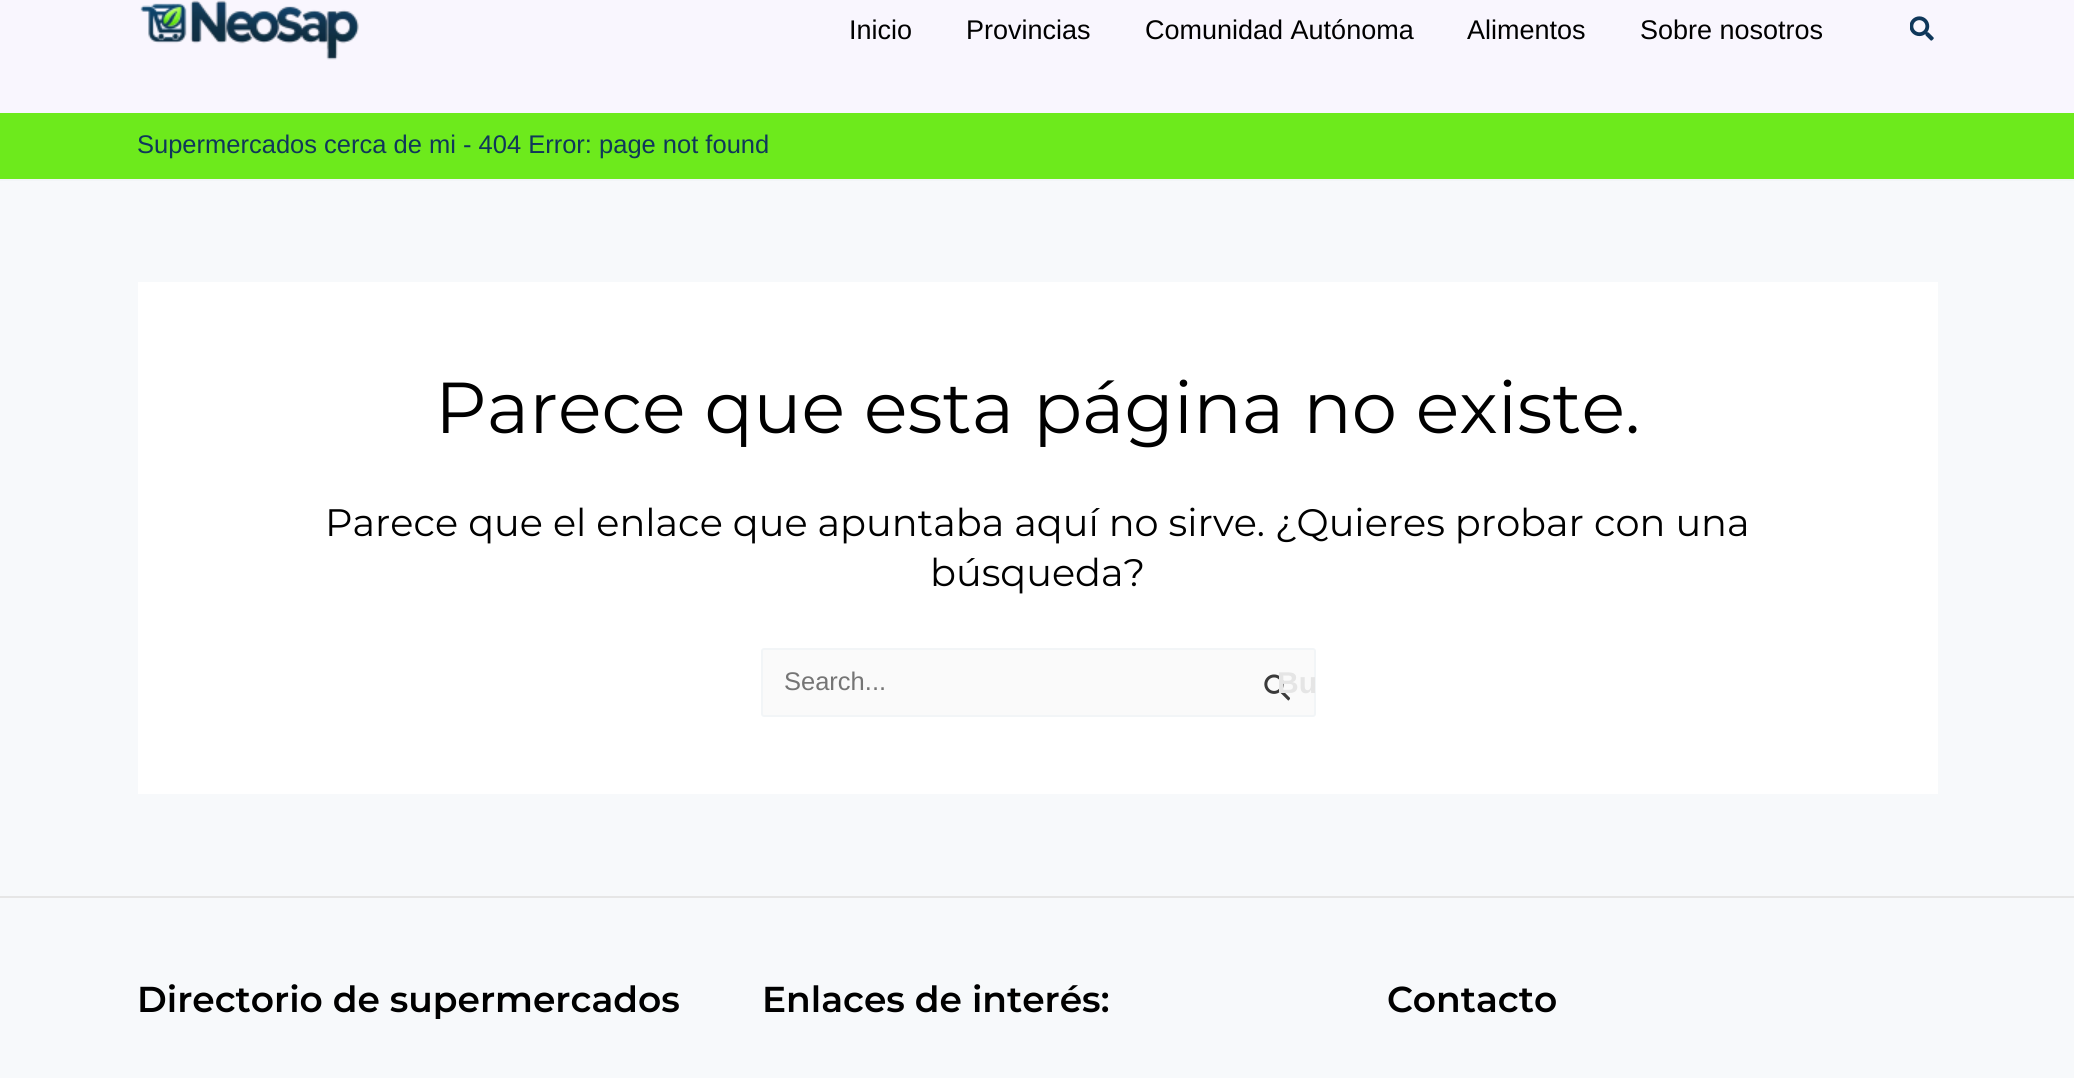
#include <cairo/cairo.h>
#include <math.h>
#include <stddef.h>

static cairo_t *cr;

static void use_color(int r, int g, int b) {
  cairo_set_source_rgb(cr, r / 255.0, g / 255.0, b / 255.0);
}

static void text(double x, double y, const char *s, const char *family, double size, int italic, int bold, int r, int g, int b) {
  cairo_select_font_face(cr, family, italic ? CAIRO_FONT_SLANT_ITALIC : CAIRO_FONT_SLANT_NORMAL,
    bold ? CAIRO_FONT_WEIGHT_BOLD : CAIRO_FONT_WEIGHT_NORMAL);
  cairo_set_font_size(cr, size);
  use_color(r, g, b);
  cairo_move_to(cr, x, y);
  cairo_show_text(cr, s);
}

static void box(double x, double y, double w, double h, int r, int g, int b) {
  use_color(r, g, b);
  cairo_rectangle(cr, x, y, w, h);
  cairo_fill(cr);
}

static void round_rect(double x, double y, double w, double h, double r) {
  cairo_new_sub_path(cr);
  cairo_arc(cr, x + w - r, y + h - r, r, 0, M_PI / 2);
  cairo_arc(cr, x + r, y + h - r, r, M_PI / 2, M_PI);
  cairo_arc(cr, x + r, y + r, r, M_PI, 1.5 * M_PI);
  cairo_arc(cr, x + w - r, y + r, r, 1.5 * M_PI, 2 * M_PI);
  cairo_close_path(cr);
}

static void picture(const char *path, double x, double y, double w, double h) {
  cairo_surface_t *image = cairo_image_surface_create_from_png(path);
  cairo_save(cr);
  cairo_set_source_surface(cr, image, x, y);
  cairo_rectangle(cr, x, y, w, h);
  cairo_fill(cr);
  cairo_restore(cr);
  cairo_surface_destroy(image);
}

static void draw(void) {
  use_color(247, 249, 251);
  cairo_paint(cr);
  box(0, 0, 2074, 113, 249, 246, 254);
  picture("img_01.png", 140, 0, 219, 60);
  picture("img_02.png", 1910, 16, 24, 25);
  box(0, 113, 2074, 66, 109, 234, 28);
  box(0, 179, 2074, 2, 242, 245, 247);
  box(138, 282, 1800, 512, 255, 255, 255);
  use_color(250, 250, 250);
  round_rect(762, 649, 553, 67, 2);
  cairo_fill_preserve(cr);
  use_color(242, 245, 247);
  cairo_stroke(cr);
  picture("img_03.png", 1264, 674, 26, 27);
  box(0, 896, 2074, 2, 230, 230, 230);
  text(849, 39, "Inicio", "Liberation Sans", 27, 0, 0, 0, 0, 0);
  text(966, 39, "Provincias", "Liberation Sans", 27, 0, 0, 0, 0, 0);
  text(1145, 39, "Comunidad Autónoma", "Liberation Sans", 27, 0, 0, 0, 0, 0);
  text(1467, 39, "Alimentos", "Liberation Sans", 27, 0, 0, 0, 0, 0);
  text(1640, 39, "Sobre nosotros", "Liberation Sans", 27, 0, 0, 0, 0, 0);
  text(137, 153, "Supermercados cerca de mi - 404 Error: page not found", "Liberation Sans", 25.5, 0, 0, 15, 55, 90);
  text(435, 433, "Parece que esta página no existe.", "Montserrat", 72, 0, 0, 0, 0, 0);
  text(325, 536, "Parece que el enlace que apuntaba aquí no sirve. ¿Quieres probar con una", "Montserrat", 38.25, 0, 0, 0, 0, 0);
  text(930, 586, "búsqueda?", "Montserrat", 38.25, 0, 0, 0, 0, 0);
  text(784, 690, "Search...", "Liberation Sans", 25.5, 0, 0, 117, 117, 117);
  text(1277, 693, "Bu", "Liberation Sans", 30, 0, 1, 229, 229, 229);
  text(137, 1012, "Directorio de supermercados", "Montserrat SemiBold", 36, 0, 0, 0, 0, 0);
  text(762, 1012, "Enlaces de interés:", "Montserrat SemiBold", 36, 0, 0, 0, 0, 0);
  text(1387, 1012, "Contacto", "Montserrat SemiBold", 36, 0, 0, 0, 0, 0);
}

int main(void) {
  cairo_surface_t *surface = cairo_image_surface_create(CAIRO_FORMAT_RGB24, 2074, 1078);
  cr = cairo_create(surface);
  cairo_font_options_t *options = cairo_font_options_create();
  cairo_font_options_set_hint_metrics(options, CAIRO_HINT_METRICS_OFF);
  cairo_font_options_set_hint_style(options, CAIRO_HINT_STYLE_NONE);
  cairo_set_font_options(cr, options);
  cairo_set_miter_limit(cr, 4);
  draw();
  cairo_surface_write_to_png(surface, "out.png");
  cairo_font_options_destroy(options);
  cairo_destroy(cr);
  cairo_surface_destroy(surface);
  return 0;
}
